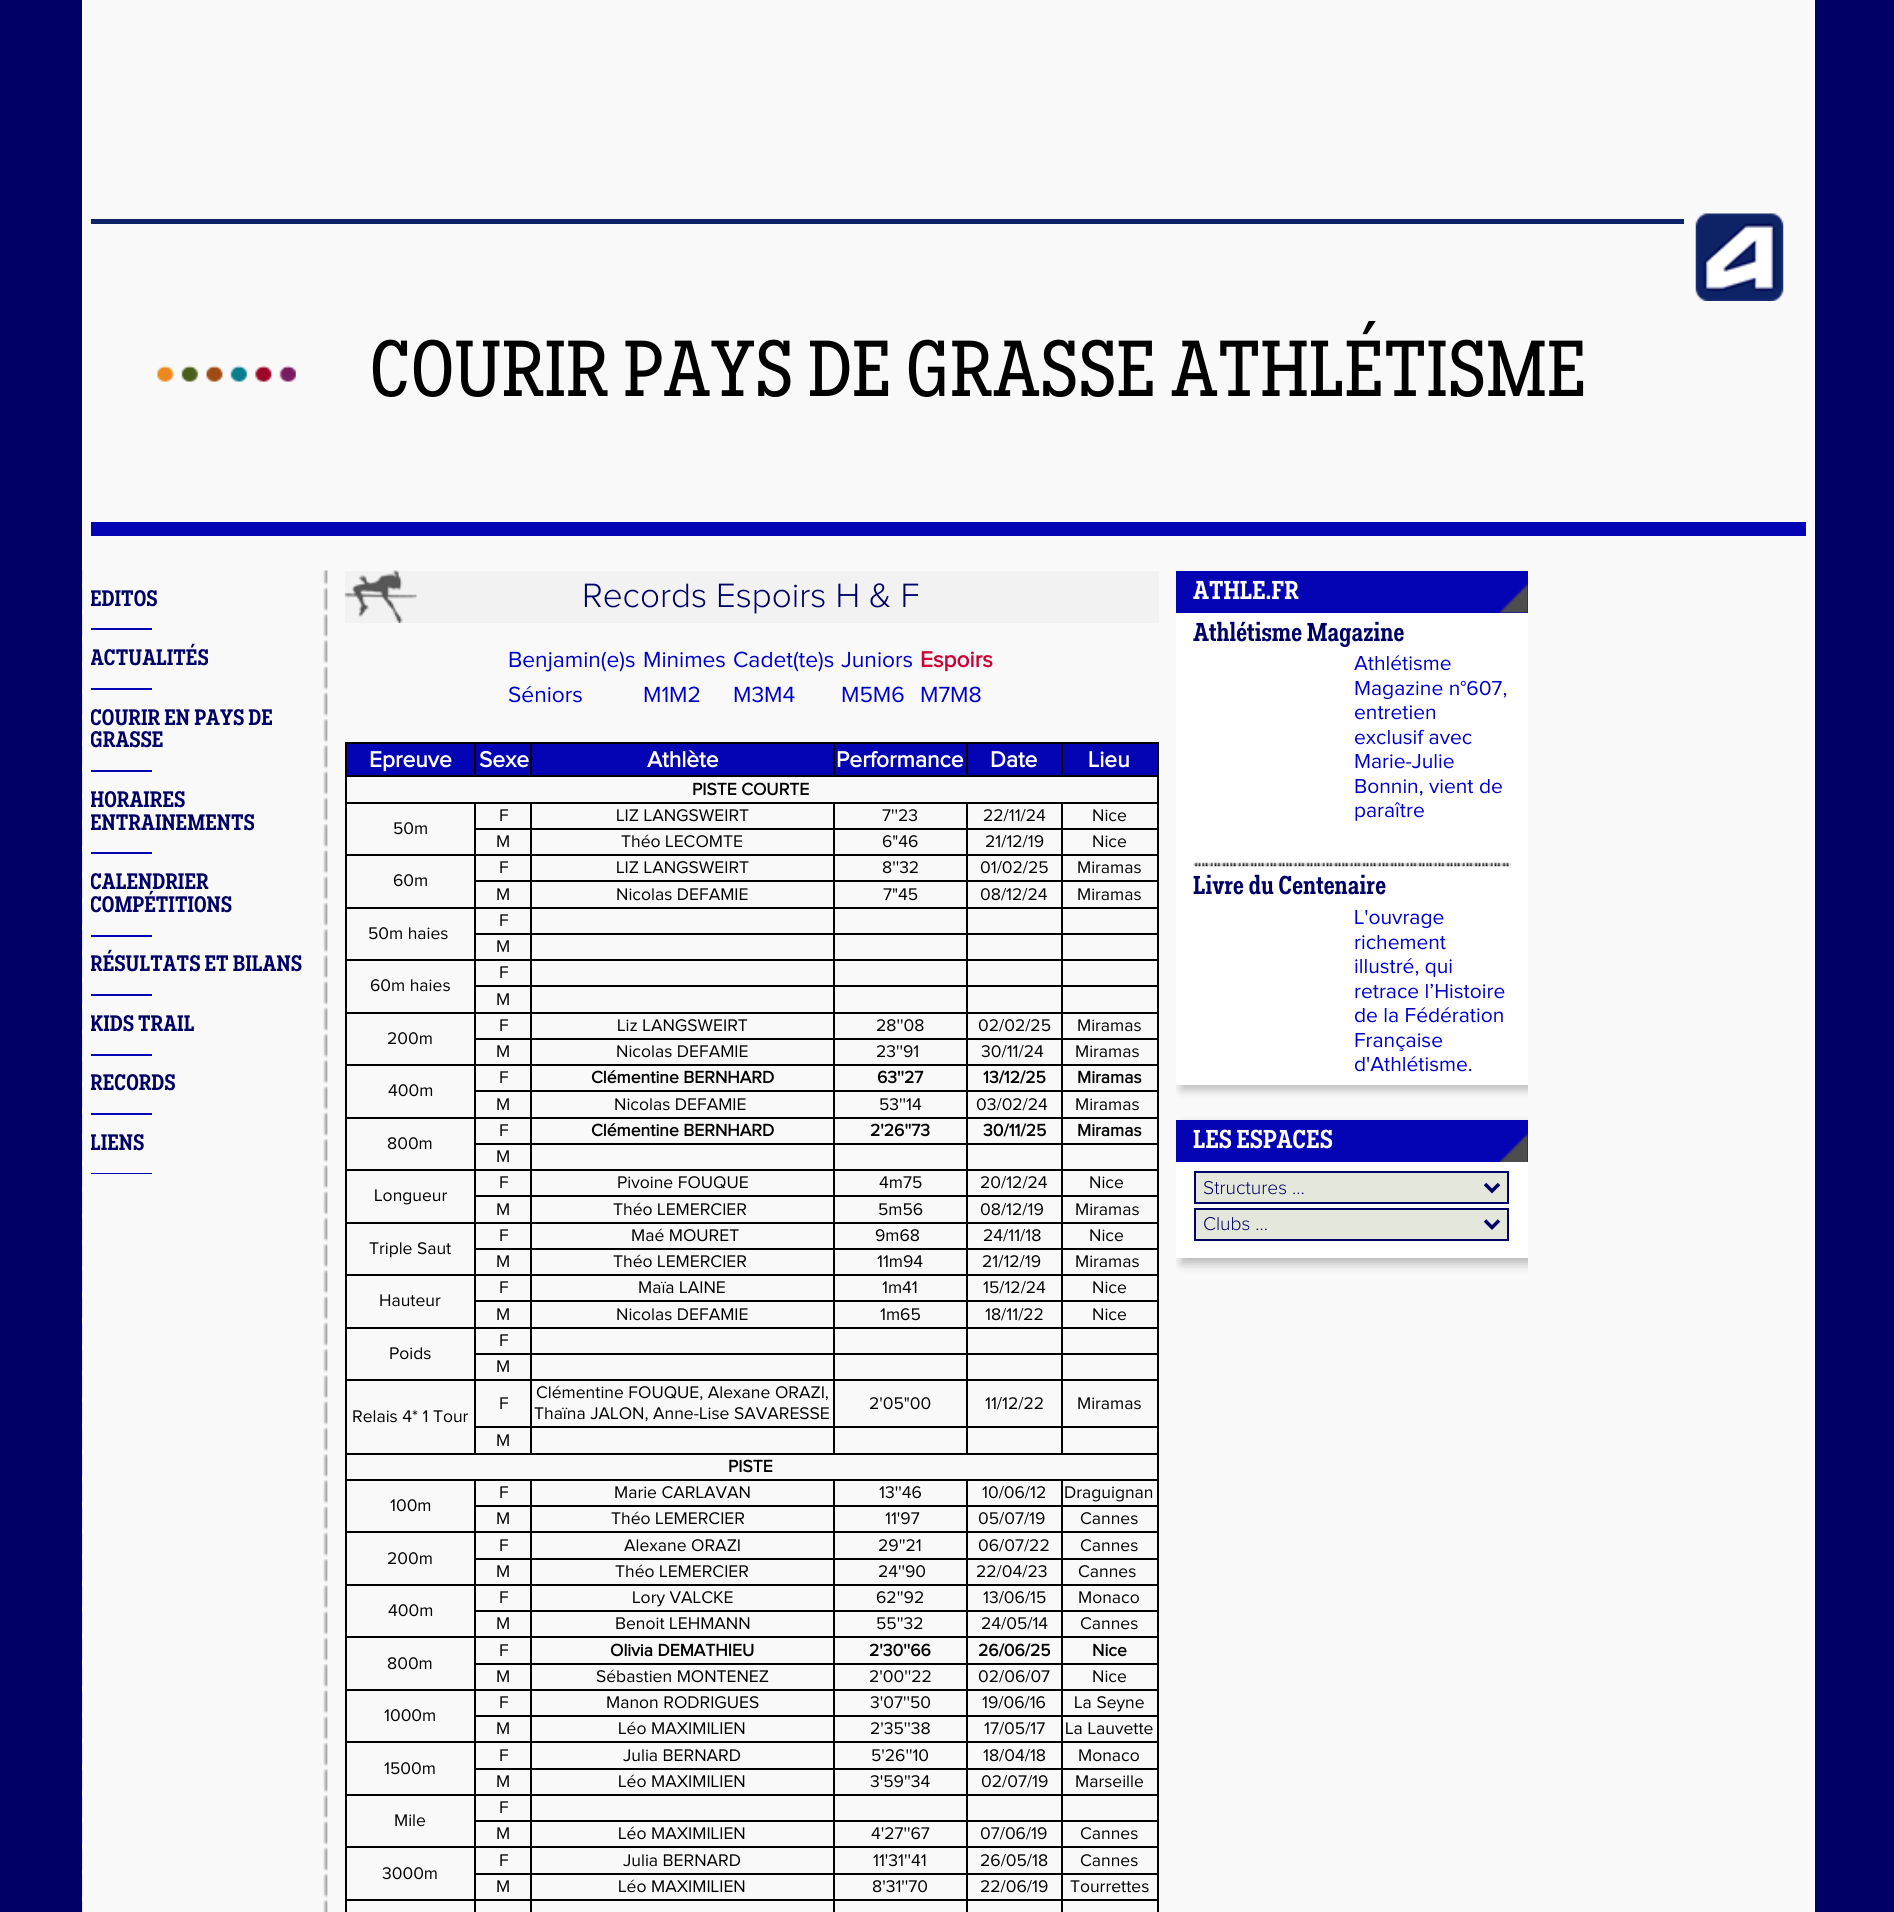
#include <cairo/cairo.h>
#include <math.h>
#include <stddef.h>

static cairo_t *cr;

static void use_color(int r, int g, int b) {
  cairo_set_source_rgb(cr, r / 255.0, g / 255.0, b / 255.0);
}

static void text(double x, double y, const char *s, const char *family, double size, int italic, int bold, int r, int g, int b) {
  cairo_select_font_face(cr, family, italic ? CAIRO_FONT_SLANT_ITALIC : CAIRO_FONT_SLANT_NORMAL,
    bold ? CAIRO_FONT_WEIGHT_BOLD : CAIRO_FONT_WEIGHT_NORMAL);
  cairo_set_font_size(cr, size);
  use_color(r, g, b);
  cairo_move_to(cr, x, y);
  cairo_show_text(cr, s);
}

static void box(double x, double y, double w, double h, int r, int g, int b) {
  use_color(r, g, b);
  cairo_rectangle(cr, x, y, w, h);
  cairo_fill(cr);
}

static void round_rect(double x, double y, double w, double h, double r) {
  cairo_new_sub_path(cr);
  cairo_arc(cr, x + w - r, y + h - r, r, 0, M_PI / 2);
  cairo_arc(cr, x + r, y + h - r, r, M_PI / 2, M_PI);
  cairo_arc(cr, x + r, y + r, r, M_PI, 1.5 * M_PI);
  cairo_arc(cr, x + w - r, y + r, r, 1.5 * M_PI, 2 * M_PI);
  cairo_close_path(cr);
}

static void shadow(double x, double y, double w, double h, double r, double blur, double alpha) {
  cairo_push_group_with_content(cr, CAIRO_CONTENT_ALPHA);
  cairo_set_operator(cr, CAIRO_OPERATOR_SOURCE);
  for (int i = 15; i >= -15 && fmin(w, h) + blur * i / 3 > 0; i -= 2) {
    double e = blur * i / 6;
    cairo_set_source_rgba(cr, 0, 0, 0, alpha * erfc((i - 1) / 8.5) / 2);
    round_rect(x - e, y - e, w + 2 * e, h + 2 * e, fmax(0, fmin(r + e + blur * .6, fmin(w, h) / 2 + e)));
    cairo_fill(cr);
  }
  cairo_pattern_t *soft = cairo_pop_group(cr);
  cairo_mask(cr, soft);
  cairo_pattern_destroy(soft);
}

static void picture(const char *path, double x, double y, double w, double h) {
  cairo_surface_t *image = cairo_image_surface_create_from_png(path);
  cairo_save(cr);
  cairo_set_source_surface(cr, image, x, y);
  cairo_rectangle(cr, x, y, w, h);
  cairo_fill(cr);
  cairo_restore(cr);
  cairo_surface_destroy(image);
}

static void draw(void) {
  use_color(0, 0, 102);
  cairo_paint(cr);
  box(82, 0, 1733, 1912, 249, 249, 249);
  box(91, 219, 1593, 5, 13, 35, 102);
  picture("img_01.png", 1695, 213, 89, 88);
  picture("img_02.png", 157, 365, 139, 17);
  box(91, 522, 1715, 14, 4, 4, 180);
  picture("img_03.png", 82, 570, 246, 1342);
  box(91, 628, 61, 2, 4, 4, 180);
  box(91, 688, 61, 2, 4, 4, 180);
  box(91, 770, 61, 2, 4, 4, 180);
  box(91, 852, 61, 2, 4, 4, 180);
  box(91, 935, 61, 2, 4, 4, 180);
  box(91, 994, 61, 2, 4, 4, 180);
  box(91, 1054, 61, 2, 4, 4, 180);
  box(91, 1113, 61, 2, 4, 4, 180);
  box(91, 1173, 61, 1, 4, 4, 180);
  box(345, 571, 814, 52, 242, 242, 242);
  picture("img_04.png", 344, 570, 73, 53);
  box(345, 742, 814, 2, 0, 0, 0);
  box(1157, 742, 2, 1170, 0, 0, 0);
  box(345, 742, 2, 1170, 0, 0, 0);
  box(347, 744, 810, 31, 4, 4, 180);
  box(1061, 775, 98, 2, 0, 0, 0);
  box(1061, 742, 2, 35, 0, 0, 0);
  box(966, 775, 96, 2, 0, 0, 0);
  box(966, 742, 2, 35, 0, 0, 0);
  box(833, 775, 135, 2, 0, 0, 0);
  box(833, 742, 2, 35, 0, 0, 0);
  box(530, 775, 305, 2, 0, 0, 0);
  box(530, 742, 2, 35, 0, 0, 0);
  box(474, 775, 58, 2, 0, 0, 0);
  box(474, 742, 2, 35, 0, 0, 0);
  box(345, 775, 131, 2, 0, 0, 0);
  box(1061, 802, 98, 2, 0, 0, 0);
  box(1061, 828, 98, 2, 0, 0, 0);
  box(1061, 854, 98, 2, 0, 0, 0);
  box(1061, 880, 98, 2, 0, 0, 0);
  box(1061, 907, 98, 2, 0, 0, 0);
  box(1061, 933, 98, 2, 0, 0, 0);
  box(1061, 959, 98, 2, 0, 0, 0);
  box(1061, 985, 98, 2, 0, 0, 0);
  box(1061, 1012, 98, 2, 0, 0, 0);
  box(1061, 1038, 98, 2, 0, 0, 0);
  box(1061, 1064, 98, 2, 0, 0, 0);
  box(1061, 1090, 98, 2, 0, 0, 0);
  box(1061, 1117, 98, 2, 0, 0, 0);
  box(1061, 1143, 98, 2, 0, 0, 0);
  box(1061, 1169, 98, 2, 0, 0, 0);
  box(1061, 1195, 98, 2, 0, 0, 0);
  box(1061, 1222, 98, 2, 0, 0, 0);
  box(1061, 1248, 98, 2, 0, 0, 0);
  box(1061, 1274, 98, 2, 0, 0, 0);
  box(1061, 1300, 98, 2, 0, 0, 0);
  box(1061, 1327, 98, 2, 0, 0, 0);
  box(1061, 1353, 98, 2, 0, 0, 0);
  box(1061, 1379, 98, 2, 0, 0, 0);
  box(1061, 1426, 98, 2, 0, 0, 0);
  box(1061, 1453, 98, 2, 0, 0, 0);
  box(1061, 1426, 2, 28, 0, 0, 0);
  box(966, 1426, 96, 2, 0, 0, 0);
  box(1061, 1379, 2, 49, 0, 0, 0);
  box(966, 1379, 96, 2, 0, 0, 0);
  box(1061, 1353, 2, 28, 0, 0, 0);
  box(966, 1353, 96, 2, 0, 0, 0);
  box(1061, 1327, 2, 28, 0, 0, 0);
  box(966, 1327, 96, 2, 0, 0, 0);
  box(1061, 1300, 2, 28, 0, 0, 0);
  box(966, 1300, 96, 2, 0, 0, 0);
  box(1061, 1274, 2, 28, 0, 0, 0);
  box(966, 1274, 96, 2, 0, 0, 0);
  box(1061, 1248, 2, 28, 0, 0, 0);
  box(966, 1248, 96, 2, 0, 0, 0);
  box(1061, 1222, 2, 28, 0, 0, 0);
  box(966, 1222, 96, 2, 0, 0, 0);
  box(1061, 1195, 2, 28, 0, 0, 0);
  box(966, 1195, 96, 2, 0, 0, 0);
  box(1061, 1169, 2, 28, 0, 0, 0);
  box(966, 1169, 96, 2, 0, 0, 0);
  box(1061, 1143, 2, 28, 0, 0, 0);
  box(966, 1143, 96, 2, 0, 0, 0);
  box(1061, 1117, 2, 28, 0, 0, 0);
  box(966, 1117, 96, 2, 0, 0, 0);
  box(1061, 1090, 2, 28, 0, 0, 0);
  box(966, 1090, 96, 2, 0, 0, 0);
  box(1061, 1064, 2, 28, 0, 0, 0);
  box(966, 1064, 96, 2, 0, 0, 0);
  box(1061, 1038, 2, 28, 0, 0, 0);
  box(966, 1038, 96, 2, 0, 0, 0);
  box(1061, 1012, 2, 28, 0, 0, 0);
  box(966, 1012, 96, 2, 0, 0, 0);
  box(1061, 985, 2, 28, 0, 0, 0);
  box(966, 985, 96, 2, 0, 0, 0);
  box(1061, 959, 2, 28, 0, 0, 0);
  box(966, 959, 96, 2, 0, 0, 0);
  box(1061, 933, 2, 28, 0, 0, 0);
  box(966, 933, 96, 2, 0, 0, 0);
  box(1061, 907, 2, 28, 0, 0, 0);
  box(966, 907, 96, 2, 0, 0, 0);
  box(1061, 880, 2, 28, 0, 0, 0);
  box(966, 880, 96, 2, 0, 0, 0);
  box(1061, 854, 2, 28, 0, 0, 0);
  box(966, 854, 96, 2, 0, 0, 0);
  box(1061, 828, 2, 28, 0, 0, 0);
  box(966, 828, 96, 2, 0, 0, 0);
  box(1061, 802, 2, 28, 0, 0, 0);
  box(966, 802, 96, 2, 0, 0, 0);
  box(966, 1453, 96, 2, 0, 0, 0);
  box(966, 1426, 2, 28, 0, 0, 0);
  box(833, 1426, 135, 2, 0, 0, 0);
  box(966, 1379, 2, 49, 0, 0, 0);
  box(833, 1379, 135, 2, 0, 0, 0);
  box(966, 1353, 2, 28, 0, 0, 0);
  box(833, 1353, 135, 2, 0, 0, 0);
  box(966, 1327, 2, 28, 0, 0, 0);
  box(833, 1327, 135, 2, 0, 0, 0);
  box(966, 1300, 2, 28, 0, 0, 0);
  box(833, 1300, 135, 2, 0, 0, 0);
  box(966, 1274, 2, 28, 0, 0, 0);
  box(833, 1274, 135, 2, 0, 0, 0);
  box(966, 1248, 2, 28, 0, 0, 0);
  box(833, 1248, 135, 2, 0, 0, 0);
  box(966, 1222, 2, 28, 0, 0, 0);
  box(833, 1222, 135, 2, 0, 0, 0);
  box(966, 1195, 2, 28, 0, 0, 0);
  box(833, 1195, 135, 2, 0, 0, 0);
  box(966, 1169, 2, 28, 0, 0, 0);
  box(833, 1169, 135, 2, 0, 0, 0);
  box(966, 1143, 2, 28, 0, 0, 0);
  box(833, 1143, 135, 2, 0, 0, 0);
  box(966, 1117, 2, 28, 0, 0, 0);
  box(833, 1117, 135, 2, 0, 0, 0);
  box(966, 1090, 2, 28, 0, 0, 0);
  box(833, 1090, 135, 2, 0, 0, 0);
  box(966, 1064, 2, 28, 0, 0, 0);
  box(833, 1064, 135, 2, 0, 0, 0);
  box(966, 1038, 2, 28, 0, 0, 0);
  box(833, 1038, 135, 2, 0, 0, 0);
  box(966, 1012, 2, 28, 0, 0, 0);
  box(833, 1012, 135, 2, 0, 0, 0);
  box(966, 985, 2, 28, 0, 0, 0);
  box(833, 985, 135, 2, 0, 0, 0);
  box(966, 959, 2, 28, 0, 0, 0);
  box(833, 959, 135, 2, 0, 0, 0);
  box(966, 933, 2, 28, 0, 0, 0);
  box(833, 933, 135, 2, 0, 0, 0);
  box(966, 907, 2, 28, 0, 0, 0);
  box(833, 907, 135, 2, 0, 0, 0);
  box(966, 880, 2, 28, 0, 0, 0);
  box(833, 880, 135, 2, 0, 0, 0);
  box(966, 854, 2, 28, 0, 0, 0);
  box(833, 854, 135, 2, 0, 0, 0);
  box(966, 828, 2, 28, 0, 0, 0);
  box(833, 828, 135, 2, 0, 0, 0);
  box(966, 802, 2, 28, 0, 0, 0);
  box(833, 802, 135, 2, 0, 0, 0);
  box(833, 1453, 135, 2, 0, 0, 0);
  box(833, 1426, 2, 28, 0, 0, 0);
  box(530, 1426, 305, 2, 0, 0, 0);
  box(833, 1379, 2, 49, 0, 0, 0);
  box(530, 1379, 305, 2, 0, 0, 0);
  box(833, 1353, 2, 28, 0, 0, 0);
  box(530, 1353, 305, 2, 0, 0, 0);
  box(833, 1327, 2, 28, 0, 0, 0);
  box(530, 1327, 305, 2, 0, 0, 0);
  box(833, 1300, 2, 28, 0, 0, 0);
  box(530, 1300, 305, 2, 0, 0, 0);
  box(833, 1274, 2, 28, 0, 0, 0);
  box(530, 1274, 305, 2, 0, 0, 0);
  box(833, 1248, 2, 28, 0, 0, 0);
  box(530, 1248, 305, 2, 0, 0, 0);
  box(833, 1222, 2, 28, 0, 0, 0);
  box(530, 1222, 305, 2, 0, 0, 0);
  box(833, 1195, 2, 28, 0, 0, 0);
  box(530, 1195, 305, 2, 0, 0, 0);
  box(833, 1169, 2, 28, 0, 0, 0);
  box(530, 1169, 305, 2, 0, 0, 0);
  box(833, 1143, 2, 28, 0, 0, 0);
  box(530, 1143, 305, 2, 0, 0, 0);
  box(833, 1117, 2, 28, 0, 0, 0);
  box(530, 1117, 305, 2, 0, 0, 0);
  box(833, 1090, 2, 28, 0, 0, 0);
  box(530, 1090, 305, 2, 0, 0, 0);
  box(833, 1064, 2, 28, 0, 0, 0);
  box(530, 1064, 305, 2, 0, 0, 0);
  box(833, 1038, 2, 28, 0, 0, 0);
  box(530, 1038, 305, 2, 0, 0, 0);
  box(833, 1012, 2, 28, 0, 0, 0);
  box(530, 1012, 305, 2, 0, 0, 0);
  box(833, 985, 2, 28, 0, 0, 0);
  box(530, 985, 305, 2, 0, 0, 0);
  box(833, 959, 2, 28, 0, 0, 0);
  box(530, 959, 305, 2, 0, 0, 0);
  box(833, 933, 2, 28, 0, 0, 0);
  box(530, 933, 305, 2, 0, 0, 0);
  box(833, 907, 2, 28, 0, 0, 0);
  box(530, 907, 305, 2, 0, 0, 0);
  box(833, 880, 2, 28, 0, 0, 0);
  box(530, 880, 305, 2, 0, 0, 0);
  box(833, 854, 2, 28, 0, 0, 0);
  box(530, 854, 305, 2, 0, 0, 0);
  box(833, 828, 2, 28, 0, 0, 0);
  box(530, 828, 305, 2, 0, 0, 0);
  box(833, 802, 2, 28, 0, 0, 0);
  box(530, 802, 305, 2, 0, 0, 0);
  box(530, 1453, 305, 2, 0, 0, 0);
  box(530, 1426, 2, 28, 0, 0, 0);
  box(474, 1426, 58, 2, 0, 0, 0);
  box(530, 1379, 2, 49, 0, 0, 0);
  box(474, 1379, 58, 2, 0, 0, 0);
  box(530, 1353, 2, 28, 0, 0, 0);
  box(474, 1353, 58, 2, 0, 0, 0);
  box(530, 1327, 2, 28, 0, 0, 0);
  box(474, 1327, 58, 2, 0, 0, 0);
  box(530, 1300, 2, 28, 0, 0, 0);
  box(474, 1300, 58, 2, 0, 0, 0);
  box(530, 1274, 2, 28, 0, 0, 0);
  box(474, 1274, 58, 2, 0, 0, 0);
  box(530, 1248, 2, 28, 0, 0, 0);
  box(474, 1248, 58, 2, 0, 0, 0);
  box(530, 1222, 2, 28, 0, 0, 0);
  box(474, 1222, 58, 2, 0, 0, 0);
  box(530, 1195, 2, 28, 0, 0, 0);
  box(474, 1195, 58, 2, 0, 0, 0);
  box(530, 1169, 2, 28, 0, 0, 0);
  box(474, 1169, 58, 2, 0, 0, 0);
  box(530, 1143, 2, 28, 0, 0, 0);
  box(474, 1143, 58, 2, 0, 0, 0);
  box(530, 1117, 2, 28, 0, 0, 0);
  box(474, 1117, 58, 2, 0, 0, 0);
  box(530, 1090, 2, 28, 0, 0, 0);
  box(474, 1090, 58, 2, 0, 0, 0);
  box(530, 1064, 2, 28, 0, 0, 0);
  box(474, 1064, 58, 2, 0, 0, 0);
  box(530, 1038, 2, 28, 0, 0, 0);
  box(474, 1038, 58, 2, 0, 0, 0);
  box(530, 1012, 2, 28, 0, 0, 0);
  box(474, 1012, 58, 2, 0, 0, 0);
  box(530, 985, 2, 28, 0, 0, 0);
  box(474, 985, 58, 2, 0, 0, 0);
  box(530, 959, 2, 28, 0, 0, 0);
  box(474, 959, 58, 2, 0, 0, 0);
  box(530, 933, 2, 28, 0, 0, 0);
  box(474, 933, 58, 2, 0, 0, 0);
  box(530, 907, 2, 28, 0, 0, 0);
  box(474, 907, 58, 2, 0, 0, 0);
  box(530, 880, 2, 28, 0, 0, 0);
  box(474, 880, 58, 2, 0, 0, 0);
  box(530, 854, 2, 28, 0, 0, 0);
  box(474, 854, 58, 2, 0, 0, 0);
  box(530, 828, 2, 28, 0, 0, 0);
  box(474, 828, 58, 2, 0, 0, 0);
  box(530, 802, 2, 28, 0, 0, 0);
  box(474, 802, 58, 2, 0, 0, 0);
  box(474, 1453, 58, 2, 0, 0, 0);
  box(474, 1426, 2, 28, 0, 0, 0);
  box(474, 1379, 2, 49, 0, 0, 0);
  box(345, 1379, 131, 2, 0, 0, 0);
  box(474, 1353, 2, 28, 0, 0, 0);
  box(474, 1327, 2, 28, 0, 0, 0);
  box(345, 1327, 131, 2, 0, 0, 0);
  box(474, 1300, 2, 28, 0, 0, 0);
  box(474, 1274, 2, 28, 0, 0, 0);
  box(345, 1274, 131, 2, 0, 0, 0);
  box(474, 1248, 2, 28, 0, 0, 0);
  box(474, 1222, 2, 28, 0, 0, 0);
  box(345, 1222, 131, 2, 0, 0, 0);
  box(474, 1195, 2, 28, 0, 0, 0);
  box(474, 1169, 2, 28, 0, 0, 0);
  box(345, 1169, 131, 2, 0, 0, 0);
  box(474, 1143, 2, 28, 0, 0, 0);
  box(474, 1117, 2, 28, 0, 0, 0);
  box(345, 1117, 131, 2, 0, 0, 0);
  box(474, 1090, 2, 28, 0, 0, 0);
  box(474, 1064, 2, 28, 0, 0, 0);
  box(345, 1064, 131, 2, 0, 0, 0);
  box(474, 1038, 2, 28, 0, 0, 0);
  box(474, 1012, 2, 28, 0, 0, 0);
  box(345, 1012, 131, 2, 0, 0, 0);
  box(474, 985, 2, 28, 0, 0, 0);
  box(474, 959, 2, 28, 0, 0, 0);
  box(345, 959, 131, 2, 0, 0, 0);
  box(474, 933, 2, 28, 0, 0, 0);
  box(474, 907, 2, 28, 0, 0, 0);
  box(345, 907, 131, 2, 0, 0, 0);
  box(474, 880, 2, 28, 0, 0, 0);
  box(474, 854, 2, 28, 0, 0, 0);
  box(345, 854, 131, 2, 0, 0, 0);
  box(474, 828, 2, 28, 0, 0, 0);
  box(474, 802, 2, 28, 0, 0, 0);
  box(345, 802, 131, 2, 0, 0, 0);
  box(345, 1453, 131, 2, 0, 0, 0);
  box(1061, 1479, 98, 2, 0, 0, 0);
  box(1061, 1505, 98, 2, 0, 0, 0);
  box(1061, 1531, 98, 2, 0, 0, 0);
  box(1061, 1558, 98, 2, 0, 0, 0);
  box(1061, 1584, 98, 2, 0, 0, 0);
  box(1061, 1610, 98, 2, 0, 0, 0);
  box(1061, 1636, 98, 2, 0, 0, 0);
  box(1061, 1663, 98, 2, 0, 0, 0);
  box(1061, 1689, 98, 2, 0, 0, 0);
  box(1061, 1715, 98, 2, 0, 0, 0);
  box(1061, 1741, 98, 2, 0, 0, 0);
  box(1061, 1768, 98, 2, 0, 0, 0);
  box(1061, 1794, 98, 2, 0, 0, 0);
  box(1061, 1820, 98, 2, 0, 0, 0);
  box(1061, 1846, 98, 2, 0, 0, 0);
  box(1061, 1873, 98, 2, 0, 0, 0);
  box(1061, 1899, 98, 2, 0, 0, 0);
  box(1061, 1899, 2, 13, 0, 0, 0);
  box(966, 1899, 96, 2, 0, 0, 0);
  box(1061, 1873, 2, 28, 0, 0, 0);
  box(966, 1873, 96, 2, 0, 0, 0);
  box(1061, 1846, 2, 28, 0, 0, 0);
  box(966, 1846, 96, 2, 0, 0, 0);
  box(1061, 1820, 2, 28, 0, 0, 0);
  box(966, 1820, 96, 2, 0, 0, 0);
  box(1061, 1794, 2, 28, 0, 0, 0);
  box(966, 1794, 96, 2, 0, 0, 0);
  box(1061, 1768, 2, 28, 0, 0, 0);
  box(966, 1768, 96, 2, 0, 0, 0);
  box(1061, 1741, 2, 28, 0, 0, 0);
  box(966, 1741, 96, 2, 0, 0, 0);
  box(1061, 1715, 2, 28, 0, 0, 0);
  box(966, 1715, 96, 2, 0, 0, 0);
  box(1061, 1689, 2, 28, 0, 0, 0);
  box(966, 1689, 96, 2, 0, 0, 0);
  box(1061, 1663, 2, 28, 0, 0, 0);
  box(966, 1663, 96, 2, 0, 0, 0);
  box(1061, 1636, 2, 28, 0, 0, 0);
  box(966, 1636, 96, 2, 0, 0, 0);
  box(1061, 1610, 2, 28, 0, 0, 0);
  box(966, 1610, 96, 2, 0, 0, 0);
  box(1061, 1584, 2, 28, 0, 0, 0);
  box(966, 1584, 96, 2, 0, 0, 0);
  box(1061, 1558, 2, 28, 0, 0, 0);
  box(966, 1558, 96, 2, 0, 0, 0);
  box(1061, 1531, 2, 28, 0, 0, 0);
  box(966, 1531, 96, 2, 0, 0, 0);
  box(1061, 1505, 2, 28, 0, 0, 0);
  box(966, 1505, 96, 2, 0, 0, 0);
  box(1061, 1479, 2, 28, 0, 0, 0);
  box(966, 1479, 96, 2, 0, 0, 0);
  box(966, 1899, 2, 13, 0, 0, 0);
  box(833, 1899, 135, 2, 0, 0, 0);
  box(966, 1873, 2, 28, 0, 0, 0);
  box(833, 1873, 135, 2, 0, 0, 0);
  box(966, 1846, 2, 28, 0, 0, 0);
  box(833, 1846, 135, 2, 0, 0, 0);
  box(966, 1820, 2, 28, 0, 0, 0);
  box(833, 1820, 135, 2, 0, 0, 0);
  box(966, 1794, 2, 28, 0, 0, 0);
  box(833, 1794, 135, 2, 0, 0, 0);
  box(966, 1768, 2, 28, 0, 0, 0);
  box(833, 1768, 135, 2, 0, 0, 0);
  box(966, 1741, 2, 28, 0, 0, 0);
  box(833, 1741, 135, 2, 0, 0, 0);
  box(966, 1715, 2, 28, 0, 0, 0);
  box(833, 1715, 135, 2, 0, 0, 0);
  box(966, 1689, 2, 28, 0, 0, 0);
  box(833, 1689, 135, 2, 0, 0, 0);
  box(966, 1663, 2, 28, 0, 0, 0);
  box(833, 1663, 135, 2, 0, 0, 0);
  box(966, 1636, 2, 28, 0, 0, 0);
  box(833, 1636, 135, 2, 0, 0, 0);
  box(966, 1610, 2, 28, 0, 0, 0);
  box(833, 1610, 135, 2, 0, 0, 0);
  box(966, 1584, 2, 28, 0, 0, 0);
  box(833, 1584, 135, 2, 0, 0, 0);
  box(966, 1558, 2, 28, 0, 0, 0);
  box(833, 1558, 135, 2, 0, 0, 0);
  box(966, 1531, 2, 28, 0, 0, 0);
  box(833, 1531, 135, 2, 0, 0, 0);
  box(966, 1505, 2, 28, 0, 0, 0);
  box(833, 1505, 135, 2, 0, 0, 0);
  box(966, 1479, 2, 28, 0, 0, 0);
  box(833, 1479, 135, 2, 0, 0, 0);
  box(833, 1899, 2, 13, 0, 0, 0);
  box(530, 1899, 305, 2, 0, 0, 0);
  box(833, 1873, 2, 28, 0, 0, 0);
  box(530, 1873, 305, 2, 0, 0, 0);
  box(833, 1846, 2, 28, 0, 0, 0);
  box(530, 1846, 305, 2, 0, 0, 0);
  box(833, 1820, 2, 28, 0, 0, 0);
  box(530, 1820, 305, 2, 0, 0, 0);
  box(833, 1794, 2, 28, 0, 0, 0);
  box(530, 1794, 305, 2, 0, 0, 0);
  box(833, 1768, 2, 28, 0, 0, 0);
  box(530, 1768, 305, 2, 0, 0, 0);
  box(833, 1741, 2, 28, 0, 0, 0);
  box(530, 1741, 305, 2, 0, 0, 0);
  box(833, 1715, 2, 28, 0, 0, 0);
  box(530, 1715, 305, 2, 0, 0, 0);
  box(833, 1689, 2, 28, 0, 0, 0);
  box(530, 1689, 305, 2, 0, 0, 0);
  box(833, 1663, 2, 28, 0, 0, 0);
  box(530, 1663, 305, 2, 0, 0, 0);
  box(833, 1636, 2, 28, 0, 0, 0);
  box(530, 1636, 305, 2, 0, 0, 0);
  box(833, 1610, 2, 28, 0, 0, 0);
  box(530, 1610, 305, 2, 0, 0, 0);
  box(833, 1584, 2, 28, 0, 0, 0);
  box(530, 1584, 305, 2, 0, 0, 0);
  box(833, 1558, 2, 28, 0, 0, 0);
  box(530, 1558, 305, 2, 0, 0, 0);
  box(833, 1531, 2, 28, 0, 0, 0);
  box(530, 1531, 305, 2, 0, 0, 0);
  box(833, 1505, 2, 28, 0, 0, 0);
  box(530, 1505, 305, 2, 0, 0, 0);
  box(833, 1479, 2, 28, 0, 0, 0);
  box(530, 1479, 305, 2, 0, 0, 0);
  box(530, 1899, 2, 13, 0, 0, 0);
  box(474, 1899, 58, 2, 0, 0, 0);
  box(530, 1873, 2, 28, 0, 0, 0);
  box(474, 1873, 58, 2, 0, 0, 0);
  box(530, 1846, 2, 28, 0, 0, 0);
  box(474, 1846, 58, 2, 0, 0, 0);
  box(530, 1820, 2, 28, 0, 0, 0);
  box(474, 1820, 58, 2, 0, 0, 0);
  box(530, 1794, 2, 28, 0, 0, 0);
  box(474, 1794, 58, 2, 0, 0, 0);
  box(530, 1768, 2, 28, 0, 0, 0);
  box(474, 1768, 58, 2, 0, 0, 0);
  box(530, 1741, 2, 28, 0, 0, 0);
  box(474, 1741, 58, 2, 0, 0, 0);
  box(530, 1715, 2, 28, 0, 0, 0);
  box(474, 1715, 58, 2, 0, 0, 0);
  box(530, 1689, 2, 28, 0, 0, 0);
  box(474, 1689, 58, 2, 0, 0, 0);
  box(530, 1663, 2, 28, 0, 0, 0);
  box(474, 1663, 58, 2, 0, 0, 0);
  box(530, 1636, 2, 28, 0, 0, 0);
  box(474, 1636, 58, 2, 0, 0, 0);
  box(530, 1610, 2, 28, 0, 0, 0);
  box(474, 1610, 58, 2, 0, 0, 0);
  box(530, 1584, 2, 28, 0, 0, 0);
  box(474, 1584, 58, 2, 0, 0, 0);
  box(530, 1558, 2, 28, 0, 0, 0);
  box(474, 1558, 58, 2, 0, 0, 0);
  box(530, 1531, 2, 28, 0, 0, 0);
  box(474, 1531, 58, 2, 0, 0, 0);
  box(530, 1505, 2, 28, 0, 0, 0);
  box(474, 1505, 58, 2, 0, 0, 0);
  box(530, 1479, 2, 28, 0, 0, 0);
  box(474, 1479, 58, 2, 0, 0, 0);
  box(474, 1899, 2, 13, 0, 0, 0);
  box(345, 1899, 131, 2, 0, 0, 0);
  box(474, 1873, 2, 28, 0, 0, 0);
  box(474, 1846, 2, 28, 0, 0, 0);
  box(345, 1846, 131, 2, 0, 0, 0);
  box(474, 1820, 2, 28, 0, 0, 0);
  box(474, 1794, 2, 28, 0, 0, 0);
  box(345, 1794, 131, 2, 0, 0, 0);
  box(474, 1768, 2, 28, 0, 0, 0);
  box(474, 1741, 2, 28, 0, 0, 0);
  box(345, 1741, 131, 2, 0, 0, 0);
  box(474, 1715, 2, 28, 0, 0, 0);
  box(474, 1689, 2, 28, 0, 0, 0);
  box(345, 1689, 131, 2, 0, 0, 0);
  box(474, 1663, 2, 28, 0, 0, 0);
  box(474, 1636, 2, 28, 0, 0, 0);
  box(345, 1636, 131, 2, 0, 0, 0);
  box(474, 1610, 2, 28, 0, 0, 0);
  box(474, 1584, 2, 28, 0, 0, 0);
  box(345, 1584, 131, 2, 0, 0, 0);
  box(474, 1558, 2, 28, 0, 0, 0);
  box(474, 1531, 2, 28, 0, 0, 0);
  box(345, 1531, 131, 2, 0, 0, 0);
  box(474, 1505, 2, 28, 0, 0, 0);
  box(474, 1479, 2, 28, 0, 0, 0);
  box(345, 1479, 131, 2, 0, 0, 0);
  cairo_save(cr);
  cairo_rectangle(cr, 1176, 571, 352, 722);
  cairo_clip(cr);
  use_color(0, 0, 0);
  shadow(1181, 576, 352, 514, 0, 4.5, 0.25);
  cairo_restore(cr);
  box(1176, 613, 352, 472, 255, 255, 255);
  box(1176, 571, 352, 42, 4, 4, 180);
  picture("img_05.png", 1499, 584, 29, 29);
  picture("img_06.png", 1193, 862, 318, 5);
  cairo_save(cr);
  cairo_rectangle(cr, 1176, 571, 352, 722);
  cairo_clip(cr);
  use_color(0, 0, 0);
  shadow(1181, 1125, 352, 139, 0, 4.5, 0.25);
  cairo_restore(cr);
  box(1176, 1162, 352, 96, 255, 255, 255);
  box(1176, 1120, 352, 42, 4, 4, 180);
  picture("img_07.png", 1499, 1134, 29, 28);
  use_color(228, 231, 219);
  cairo_rectangle(cr, 1195, 1172, 313, 31);
  cairo_fill_preserve(cr);
  use_color(0, 0, 102);
  cairo_stroke(cr);
  cairo_new_path(cr);
  cairo_move_to(cr, 1485, 1184);
  cairo_line_to(cr, 1492, 1191);
  cairo_line_to(cr, 1499, 1184);
  cairo_set_line_width(cr, 3.5);
  cairo_stroke(cr);
  use_color(228, 231, 219);
  cairo_rectangle(cr, 1195, 1209, 313, 31);
  cairo_fill_preserve(cr);
  use_color(0, 0, 102);
  cairo_set_line_width(cr, 2);
  cairo_stroke(cr);
  cairo_new_path(cr);
  cairo_move_to(cr, 1485, 1220.5);
  cairo_line_to(cr, 1492, 1227.5);
  cairo_line_to(cr, 1499, 1220.5);
  cairo_set_line_width(cr, 3.5);
  cairo_stroke(cr);
  text(370, 396, "COURIR PAYS DE GRASSE ATHLÉTISME", "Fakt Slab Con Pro", 80.5, 0, 0, 0, 0, 0);
  cairo_save(cr);
  cairo_rectangle(cr, 91, 571, 228, 603);
  cairo_clip(cr);
  text(90, 606, "EDITOS", "Fakt Slab Con Pro SemiBold", 22.75, 0, 0, 0, 0, 102);
  text(90, 665, "ACTUALITÉS", "Fakt Slab Con Pro SemiBold", 22.75, 0, 0, 0, 0, 102);
  text(90, 725, "COURIR EN PAYS DE", "Fakt Slab Con Pro SemiBold", 22.75, 0, 0, 0, 0, 102);
  text(90, 747, "GRASSE", "Fakt Slab Con Pro SemiBold", 22.75, 0, 0, 0, 0, 102);
  text(90, 807, "HORAIRES", "Fakt Slab Con Pro SemiBold", 22.75, 0, 0, 0, 0, 102);
  text(90, 830, "ENTRAINEMENTS", "Fakt Slab Con Pro SemiBold", 22.75, 0, 0, 0, 0, 102);
  text(90, 889, "CALENDRIER", "Fakt Slab Con Pro SemiBold", 22.75, 0, 0, 0, 0, 102);
  text(90, 912, "COMPÉTITIONS", "Fakt Slab Con Pro SemiBold", 22.75, 0, 0, 0, 0, 102);
  text(90, 971, "RÉSULTATS ET BILANS", "Fakt Slab Con Pro SemiBold", 22.75, 0, 0, 0, 0, 102);
  text(90, 1031, "KIDS TRAIL", "Fakt Slab Con Pro SemiBold", 22.75, 0, 0, 0, 0, 102);
  text(90, 1090, "RECORDS", "Fakt Slab Con Pro SemiBold", 22.75, 0, 0, 0, 0, 102);
  text(90, 1150, "LIENS", "Fakt Slab Con Pro SemiBold", 22.75, 0, 0, 0, 0, 102);
  cairo_restore(cr);
  text(582, 607, "Records Espoirs H & F", "Proxima Nova Light", 35, 0, 0, 0, 0, 102);
  text(508, 667, "Benjamin(e)s", "Proxima Nova", 22.75, 0, 0, 0, 0, 204);
  text(643, 667, "Minimes", "Proxima Nova", 22.75, 0, 0, 0, 0, 204);
  text(733, 667, "Cadet(te)s", "Proxima Nova", 22.75, 0, 0, 0, 0, 204);
  text(841, 667, "Juniors", "Proxima Nova", 22.75, 0, 0, 0, 0, 204);
  text(920, 667, "Espoirs", "Proxima Nova", 22.75, 0, 1, 204, 0, 51);
  text(508, 702, "Séniors", "Proxima Nova", 22.75, 0, 0, 0, 0, 204);
  text(643, 702, "M1M2", "Proxima Nova", 22.75, 0, 0, 0, 0, 204);
  text(733, 702, "M3M4", "Proxima Nova", 22.75, 0, 0, 0, 0, 204);
  text(841, 702, "M5M6", "Proxima Nova", 22.75, 0, 0, 0, 0, 204);
  text(920, 702, "M7M8", "Proxima Nova", 22.75, 0, 0, 0, 0, 204);
  text(369, 767, "Epreuve", "Proxima Nova", 22.75, 0, 1, 255, 255, 255);
  text(479, 767, "Sexe", "Proxima Nova", 22.75, 0, 1, 255, 255, 255);
  text(647, 767, "Athlète", "Proxima Nova", 22.75, 0, 1, 255, 255, 255);
  text(836, 767, "Performance", "Proxima Nova", 22.75, 0, 1, 255, 255, 255);
  text(990, 767, "Date", "Proxima Nova", 22.75, 0, 1, 255, 255, 255);
  text(1088, 767, "Lieu", "Proxima Nova", 22.75, 0, 1, 255, 255, 255);
  text(692, 795, "PISTE COURTE", "Proxima Nova", 17.5, 0, 1, 0, 0, 0);
  text(499, 821, "F", "Proxima Nova", 17.5, 0, 0, 0, 0, 0);
  text(616, 821, "LIZ LANGSWEIRT", "Proxima Nova", 17.5, 0, 0, 0, 0, 0);
  text(882, 821, "7''23", "Proxima Nova", 17.5, 0, 0, 0, 0, 0);
  text(983, 821, "22/11/24", "Proxima Nova", 17.5, 0, 0, 0, 0, 0);
  text(1092, 821, "Nice", "Proxima Nova", 17.5, 0, 0, 0, 0, 0);
  text(393, 834, "50m", "Proxima Nova", 17.5, 0, 0, 0, 0, 0);
  text(496, 847, "M", "Proxima Nova", 17.5, 0, 0, 0, 0, 0);
  text(621, 847, "Théo LECOMTE", "Proxima Nova", 17.5, 0, 0, 0, 0, 0);
  text(882, 847, "6\"46", "Proxima Nova", 17.5, 0, 0, 0, 0, 0);
  text(985, 847, "21/12/19", "Proxima Nova", 17.5, 0, 0, 0, 0, 0);
  text(1092, 847, "Nice", "Proxima Nova", 17.5, 0, 0, 0, 0, 0);
  text(499, 873, "F", "Proxima Nova", 17.5, 0, 0, 0, 0, 0);
  text(616, 873, "LIZ LANGSWEIRT", "Proxima Nova", 17.5, 0, 0, 0, 0, 0);
  text(882, 873, "8''32", "Proxima Nova", 17.5, 0, 0, 0, 0, 0);
  text(980, 873, "01/02/25", "Proxima Nova", 17.5, 0, 0, 0, 0, 0);
  text(1077, 873, "Miramas", "Proxima Nova", 17.5, 0, 0, 0, 0, 0);
  text(393, 886, "60m", "Proxima Nova", 17.5, 0, 0, 0, 0, 0);
  text(496, 900, "M", "Proxima Nova", 17.5, 0, 0, 0, 0, 0);
  text(616, 900, "Nicolas DEFAMIE", "Proxima Nova", 17.5, 0, 0, 0, 0, 0);
  text(883, 900, "7\"45", "Proxima Nova", 17.5, 0, 0, 0, 0, 0);
  text(980, 900, "08/12/24", "Proxima Nova", 17.5, 0, 0, 0, 0, 0);
  text(1077, 900, "Miramas", "Proxima Nova", 17.5, 0, 0, 0, 0, 0);
  text(499, 926, "F", "Proxima Nova", 17.5, 0, 0, 0, 0, 0);
  text(368, 939, "50m haies", "Proxima Nova", 17.5, 0, 0, 0, 0, 0);
  text(496, 952, "M", "Proxima Nova", 17.5, 0, 0, 0, 0, 0);
  text(499, 978, "F", "Proxima Nova", 17.5, 0, 0, 0, 0, 0);
  text(370, 991, "60m haies", "Proxima Nova", 17.5, 0, 0, 0, 0, 0);
  text(496, 1005, "M", "Proxima Nova", 17.5, 0, 0, 0, 0, 0);
  text(499, 1031, "F", "Proxima Nova", 17.5, 0, 0, 0, 0, 0);
  text(617, 1031, "Liz LANGSWEIRT", "Proxima Nova", 17.5, 0, 0, 0, 0, 0);
  text(876, 1031, "28''08", "Proxima Nova", 17.5, 0, 0, 0, 0, 0);
  text(978, 1031, "02/02/25", "Proxima Nova", 17.5, 0, 0, 0, 0, 0);
  text(1077, 1031, "Miramas", "Proxima Nova", 17.5, 0, 0, 0, 0, 0);
  text(387, 1044, "200m", "Proxima Nova", 17.5, 0, 0, 0, 0, 0);
  text(496, 1057, "M", "Proxima Nova", 17.5, 0, 0, 0, 0, 0);
  text(616, 1057, "Nicolas DEFAMIE", "Proxima Nova", 17.5, 0, 0, 0, 0, 0);
  text(876, 1057, "23''91", "Proxima Nova", 17.5, 0, 0, 0, 0, 0);
  text(981, 1057, "30/11/24", "Proxima Nova", 17.5, 0, 0, 0, 0, 0);
  text(1075, 1057, "Miramas", "Proxima Nova", 17.5, 0, 0, 0, 0, 0);
  text(499, 1083, "F", "Proxima Nova", 17.5, 0, 0, 0, 0, 0);
  text(591, 1083, "Clémentine BERNHARD", "Proxima Nova", 17.5, 0, 1, 0, 0, 0);
  text(877, 1083, "63''27", "Proxima Nova", 17.5, 0, 1, 0, 0, 0);
  text(983, 1083, "13/12/25", "Proxima Nova", 17.5, 0, 1, 0, 0, 0);
  text(1077, 1083, "Miramas", "Proxima Nova", 17.5, 0, 1, 0, 0, 0);
  text(388, 1096, "400m", "Proxima Nova", 17.5, 0, 0, 0, 0, 0);
  text(496, 1110, "M", "Proxima Nova", 17.5, 0, 0, 0, 0, 0);
  text(614, 1110, "Nicolas DEFAMIE", "Proxima Nova", 17.5, 0, 0, 0, 0, 0);
  text(879, 1110, "53''14", "Proxima Nova", 17.5, 0, 0, 0, 0, 0);
  text(976, 1110, "03/02/24", "Proxima Nova", 17.5, 0, 0, 0, 0, 0);
  text(1075, 1110, "Miramas", "Proxima Nova", 17.5, 0, 0, 0, 0, 0);
  text(499, 1136, "F", "Proxima Nova", 17.5, 0, 0, 0, 0, 0);
  text(591, 1136, "Clémentine BERNHARD", "Proxima Nova", 17.5, 0, 1, 0, 0, 0);
  text(870, 1136, "2'26''73", "Proxima Nova", 17.5, 0, 1, 0, 0, 0);
  text(983, 1136, "30/11/25", "Proxima Nova", 17.5, 0, 1, 0, 0, 0);
  text(1077, 1136, "Miramas", "Proxima Nova", 17.5, 0, 1, 0, 0, 0);
  text(387, 1149, "800m", "Proxima Nova", 17.5, 0, 0, 0, 0, 0);
  text(496, 1162, "M", "Proxima Nova", 17.5, 0, 0, 0, 0, 0);
  text(499, 1188, "F", "Proxima Nova", 17.5, 0, 0, 0, 0, 0);
  text(617, 1188, "Pivoine FOUQUE", "Proxima Nova", 17.5, 0, 0, 0, 0, 0);
  text(879, 1188, "4m75", "Proxima Nova", 17.5, 0, 0, 0, 0, 0);
  text(980, 1188, "20/12/24", "Proxima Nova", 17.5, 0, 0, 0, 0, 0);
  text(1089, 1188, "Nice", "Proxima Nova", 17.5, 0, 0, 0, 0, 0);
  text(374, 1201, "Longueur", "Proxima Nova", 17.5, 0, 0, 0, 0, 0);
  text(496, 1215, "M", "Proxima Nova", 17.5, 0, 0, 0, 0, 0);
  text(613, 1215, "Théo LEMERCIER", "Proxima Nova", 17.5, 0, 0, 0, 0, 0);
  text(878, 1215, "5m56", "Proxima Nova", 17.5, 0, 0, 0, 0, 0);
  text(980, 1215, "08/12/19", "Proxima Nova", 17.5, 0, 0, 0, 0, 0);
  text(1075, 1215, "Miramas", "Proxima Nova", 17.5, 0, 0, 0, 0, 0);
  text(499, 1241, "F", "Proxima Nova", 17.5, 0, 0, 0, 0, 0);
  text(631, 1241, "Maé MOURET", "Proxima Nova", 17.5, 0, 0, 0, 0, 0);
  text(875, 1241, "9m68", "Proxima Nova", 17.5, 0, 0, 0, 0, 0);
  text(983, 1241, "24/11/18", "Proxima Nova", 17.5, 0, 0, 0, 0, 0);
  text(1089, 1241, "Nice", "Proxima Nova", 17.5, 0, 0, 0, 0, 0);
  text(369, 1254, "Triple Saut", "Proxima Nova", 17.5, 0, 0, 0, 0, 0);
  text(496, 1267, "M", "Proxima Nova", 17.5, 0, 0, 0, 0, 0);
  text(613, 1267, "Théo LEMERCIER", "Proxima Nova", 17.5, 0, 0, 0, 0, 0);
  text(877, 1267, "11m94", "Proxima Nova", 17.5, 0, 0, 0, 0, 0);
  text(982, 1267, "21/12/19", "Proxima Nova", 17.5, 0, 0, 0, 0, 0);
  text(1075, 1267, "Miramas", "Proxima Nova", 17.5, 0, 0, 0, 0, 0);
  text(499, 1293, "F", "Proxima Nova", 17.5, 0, 0, 0, 0, 0);
  text(638, 1293, "Maïa LAINE", "Proxima Nova", 17.5, 0, 0, 0, 0, 0);
  text(882, 1293, "1m41", "Proxima Nova", 17.5, 0, 0, 0, 0, 0);
  text(983, 1293, "15/12/24", "Proxima Nova", 17.5, 0, 0, 0, 0, 0);
  text(1092, 1293, "Nice", "Proxima Nova", 17.5, 0, 0, 0, 0, 0);
  text(379, 1306, "Hauteur", "Proxima Nova", 17.5, 0, 0, 0, 0, 0);
  text(496, 1320, "M", "Proxima Nova", 17.5, 0, 0, 0, 0, 0);
  text(616, 1320, "Nicolas DEFAMIE", "Proxima Nova", 17.5, 0, 0, 0, 0, 0);
  text(880, 1320, "1m65", "Proxima Nova", 17.5, 0, 0, 0, 0, 0);
  text(985, 1320, "18/11/22", "Proxima Nova", 17.5, 0, 0, 0, 0, 0);
  text(1092, 1320, "Nice", "Proxima Nova", 17.5, 0, 0, 0, 0, 0);
  text(499, 1346, "F", "Proxima Nova", 17.5, 0, 0, 0, 0, 0);
  text(389, 1359, "Poids", "Proxima Nova", 17.5, 0, 0, 0, 0, 0);
  text(496, 1372, "M", "Proxima Nova", 17.5, 0, 0, 0, 0, 0);
  text(499, 1409, "F", "Proxima Nova", 17.5, 0, 0, 0, 0, 0);
  text(536, 1398, "Clémentine FOUQUE, Alexane ORAZI,", "Proxima Nova", 17.5, 0, 0, 0, 0, 0);
  text(534, 1419, "Thaïna JALON, Anne-Lise SAVARESSE", "Proxima Nova", 17.5, 0, 0, 0, 0, 0);
  text(869, 1409, "2'05\"00", "Proxima Nova", 17.5, 0, 0, 0, 0, 0);
  text(985, 1409, "11/12/22", "Proxima Nova", 17.5, 0, 0, 0, 0, 0);
  text(1077, 1409, "Miramas", "Proxima Nova", 17.5, 0, 0, 0, 0, 0);
  text(352, 1422, "Relais 4* 1 Tour", "Proxima Nova", 17.5, 0, 0, 0, 0, 0);
  text(496, 1446, "M", "Proxima Nova", 17.5, 0, 0, 0, 0, 0);
  text(728, 1472, "PISTE", "Proxima Nova", 17.5, 0, 1, 0, 0, 0);
  text(499, 1498, "F", "Proxima Nova", 17.5, 0, 0, 0, 0, 0);
  text(614, 1498, "Marie CARLAVAN", "Proxima Nova", 17.5, 0, 0, 0, 0, 0);
  text(879, 1498, "13''46", "Proxima Nova", 17.5, 0, 0, 0, 0, 0);
  text(982, 1498, "10/06/12", "Proxima Nova", 17.5, 0, 0, 0, 0, 0);
  text(1064, 1498, "Draguignan", "Proxima Nova", 17.5, 0, 0, 0, 0, 0);
  text(390, 1511, "100m", "Proxima Nova", 17.5, 0, 0, 0, 0, 0);
  text(496, 1524, "M", "Proxima Nova", 17.5, 0, 0, 0, 0, 0);
  text(611, 1524, "Théo LEMERCIER", "Proxima Nova", 17.5, 0, 0, 0, 0, 0);
  text(885, 1524, "11'97", "Proxima Nova", 17.5, 0, 0, 0, 0, 0);
  text(978, 1524, "05/07/19", "Proxima Nova", 17.5, 0, 0, 0, 0, 0);
  text(1080, 1524, "Cannes", "Proxima Nova", 17.5, 0, 0, 0, 0, 0);
  text(499, 1551, "F", "Proxima Nova", 17.5, 0, 0, 0, 0, 0);
  text(624, 1551, "Alexane ORAZI", "Proxima Nova", 17.5, 0, 0, 0, 0, 0);
  text(878, 1551, "29''21", "Proxima Nova", 17.5, 0, 0, 0, 0, 0);
  text(978, 1551, "06/07/22", "Proxima Nova", 17.5, 0, 0, 0, 0, 0);
  text(1080, 1551, "Cannes", "Proxima Nova", 17.5, 0, 0, 0, 0, 0);
  text(387, 1564, "200m", "Proxima Nova", 17.5, 0, 0, 0, 0, 0);
  text(496, 1577, "M", "Proxima Nova", 17.5, 0, 0, 0, 0, 0);
  text(615, 1577, "Théo LEMERCIER", "Proxima Nova", 17.5, 0, 0, 0, 0, 0);
  text(878, 1577, "24''90", "Proxima Nova", 17.5, 0, 0, 0, 0, 0);
  text(976, 1577, "22/04/23", "Proxima Nova", 17.5, 0, 0, 0, 0, 0);
  text(1078, 1577, "Cannes", "Proxima Nova", 17.5, 0, 0, 0, 0, 0);
  text(499, 1603, "F", "Proxima Nova", 17.5, 0, 0, 0, 0, 0);
  text(632, 1603, "Lory VALCKE", "Proxima Nova", 17.5, 0, 0, 0, 0, 0);
  text(876, 1603, "62''92", "Proxima Nova", 17.5, 0, 0, 0, 0, 0);
  text(983, 1603, "13/06/15", "Proxima Nova", 17.5, 0, 0, 0, 0, 0);
  text(1078, 1603, "Monaco", "Proxima Nova", 17.5, 0, 0, 0, 0, 0);
  text(388, 1616, "400m", "Proxima Nova", 17.5, 0, 0, 0, 0, 0);
  text(496, 1629, "M", "Proxima Nova", 17.5, 0, 0, 0, 0, 0);
  text(615, 1629, "Benoit LEHMANN", "Proxima Nova", 17.5, 0, 0, 0, 0, 0);
  text(876, 1629, "55''32", "Proxima Nova", 17.5, 0, 0, 0, 0, 0);
  text(981, 1629, "24/05/14", "Proxima Nova", 17.5, 0, 0, 0, 0, 0);
  text(1080, 1629, "Cannes", "Proxima Nova", 17.5, 0, 0, 0, 0, 0);
  text(499, 1656, "F", "Proxima Nova", 17.5, 0, 0, 0, 0, 0);
  text(610, 1656, "Olivia DEMATHIEU", "Proxima Nova", 17.5, 0, 1, 0, 0, 0);
  text(869, 1656, "2'30''66", "Proxima Nova", 17.5, 0, 1, 0, 0, 0);
  text(978, 1656, "26/06/25", "Proxima Nova", 17.5, 0, 1, 0, 0, 0);
  text(1092, 1656, "Nice", "Proxima Nova", 17.5, 0, 1, 0, 0, 0);
  text(387, 1669, "800m", "Proxima Nova", 17.5, 0, 0, 0, 0, 0);
  text(496, 1682, "M", "Proxima Nova", 17.5, 0, 0, 0, 0, 0);
  text(596, 1682, "Sébastien MONTENEZ", "Proxima Nova", 17.5, 0, 0, 0, 0, 0);
  text(869, 1682, "2'00''22", "Proxima Nova", 17.5, 0, 0, 0, 0, 0);
  text(978, 1682, "02/06/07", "Proxima Nova", 17.5, 0, 0, 0, 0, 0);
  text(1092, 1682, "Nice", "Proxima Nova", 17.5, 0, 0, 0, 0, 0);
  text(499, 1708, "F", "Proxima Nova", 17.5, 0, 0, 0, 0, 0);
  text(606, 1708, "Manon RODRIGUES", "Proxima Nova", 17.5, 0, 0, 0, 0, 0);
  text(870, 1708, "3'07''50", "Proxima Nova", 17.5, 0, 0, 0, 0, 0);
  text(982, 1708, "19/06/16", "Proxima Nova", 17.5, 0, 0, 0, 0, 0);
  text(1074, 1708, "La Seyne", "Proxima Nova", 17.5, 0, 0, 0, 0, 0);
  text(384, 1721, "1000m", "Proxima Nova", 17.5, 0, 0, 0, 0, 0);
  text(496, 1734, "M", "Proxima Nova", 17.5, 0, 0, 0, 0, 0);
  text(618, 1734, "Léo MAXIMILIEN", "Proxima Nova", 17.5, 0, 0, 0, 0, 0);
  text(870, 1734, "2'35''38", "Proxima Nova", 17.5, 0, 0, 0, 0, 0);
  text(984, 1734, "17/05/17", "Proxima Nova", 17.5, 0, 0, 0, 0, 0);
  text(1065, 1734, "La Lauvette", "Proxima Nova", 17.5, 0, 0, 0, 0, 0);
  text(499, 1761, "F", "Proxima Nova", 17.5, 0, 0, 0, 0, 0);
  text(623, 1761, "Julia BERNARD", "Proxima Nova", 17.5, 0, 0, 0, 0, 0);
  text(871, 1761, "5'26''10", "Proxima Nova", 17.5, 0, 0, 0, 0, 0);
  text(983, 1761, "18/04/18", "Proxima Nova", 17.5, 0, 0, 0, 0, 0);
  text(1078, 1761, "Monaco", "Proxima Nova", 17.5, 0, 0, 0, 0, 0);
  text(384, 1774, "1500m", "Proxima Nova", 17.5, 0, 0, 0, 0, 0);
  text(496, 1787, "M", "Proxima Nova", 17.5, 0, 0, 0, 0, 0);
  text(618, 1787, "Léo MAXIMILIEN", "Proxima Nova", 17.5, 0, 0, 0, 0, 0);
  text(870, 1787, "3'59''34", "Proxima Nova", 17.5, 0, 0, 0, 0, 0);
  text(981, 1787, "02/07/19", "Proxima Nova", 17.5, 0, 0, 0, 0, 0);
  text(1075, 1787, "Marseille", "Proxima Nova", 17.5, 0, 0, 0, 0, 0);
  text(499, 1813, "F", "Proxima Nova", 17.5, 0, 0, 0, 0, 0);
  text(394, 1826, "Mile", "Proxima Nova", 17.5, 0, 0, 0, 0, 0);
  text(496, 1839, "M", "Proxima Nova", 17.5, 0, 0, 0, 0, 0);
  text(618, 1839, "Léo MAXIMILIEN", "Proxima Nova", 17.5, 0, 0, 0, 0, 0);
  text(871, 1839, "4'27''67", "Proxima Nova", 17.5, 0, 0, 0, 0, 0);
  text(980, 1839, "07/06/19", "Proxima Nova", 17.5, 0, 0, 0, 0, 0);
  text(1080, 1839, "Cannes", "Proxima Nova", 17.5, 0, 0, 0, 0, 0);
  text(499, 1866, "F", "Proxima Nova", 17.5, 0, 0, 0, 0, 0);
  text(623, 1866, "Julia BERNARD", "Proxima Nova", 17.5, 0, 0, 0, 0, 0);
  text(873, 1866, "11'31''41", "Proxima Nova", 17.5, 0, 0, 0, 0, 0);
  text(980, 1866, "26/05/18", "Proxima Nova", 17.5, 0, 0, 0, 0, 0);
  text(1080, 1866, "Cannes", "Proxima Nova", 17.5, 0, 0, 0, 0, 0);
  text(382, 1879, "3000m", "Proxima Nova", 17.5, 0, 0, 0, 0, 0);
  text(496, 1892, "M", "Proxima Nova", 17.5, 0, 0, 0, 0, 0);
  text(618, 1892, "Léo MAXIMILIEN", "Proxima Nova", 17.5, 0, 0, 0, 0, 0);
  text(872, 1892, "8'31''70", "Proxima Nova", 17.5, 0, 0, 0, 0, 0);
  text(980, 1892, "22/06/19", "Proxima Nova", 17.5, 0, 0, 0, 0, 0);
  text(1070, 1892, "Tourrettes", "Proxima Nova", 17.5, 0, 0, 0, 0, 0);
  text(1193, 599, "ATHLE.FR", "Fakt Slab Con Pro SemiBold", 26.25, 0, 0, 255, 255, 255);
  text(1193, 641, "Athlétisme Magazine", "Fakt Slab Con Pro SemiBold", 26.25, 0, 0, 0, 0, 102);
  text(1354, 670, "Athlétisme", "Proxima Nova", 21, 0, 0, 0, 0, 204);
  text(1354, 695, "Magazine n°607,", "Proxima Nova", 21, 0, 0, 0, 0, 204);
  text(1354, 719, "entretien", "Proxima Nova", 21, 0, 0, 0, 0, 204);
  text(1354, 744, "exclusif avec", "Proxima Nova", 21, 0, 0, 0, 0, 204);
  text(1354, 768, "Marie-Julie", "Proxima Nova", 21, 0, 0, 0, 0, 204);
  text(1354, 793, "Bonnin, vient de", "Proxima Nova", 21, 0, 0, 0, 0, 204);
  text(1354, 817, "paraître", "Proxima Nova", 21, 0, 0, 0, 0, 204);
  text(1193, 894, "Livre du Centenaire", "Fakt Slab Con Pro SemiBold", 26.25, 0, 0, 0, 0, 102);
  text(1354, 924, "L'ouvrage", "Proxima Nova", 21, 0, 0, 0, 0, 204);
  text(1354, 949, "richement", "Proxima Nova", 21, 0, 0, 0, 0, 204);
  text(1354, 973, "illustré, qui", "Proxima Nova", 21, 0, 0, 0, 0, 204);
  text(1354, 998, "retrace l’Histoire", "Proxima Nova", 21, 0, 0, 0, 0, 204);
  text(1354, 1022, "de la Fédération", "Proxima Nova", 21, 0, 0, 0, 0, 204);
  text(1354, 1047, "Française", "Proxima Nova", 21, 0, 0, 0, 0, 204);
  text(1354, 1071, "d'Athlétisme.", "Proxima Nova", 21, 0, 0, 0, 0, 204);
  text(1193, 1148, "LES ESPACES", "Fakt Slab Con Pro SemiBold", 26.25, 0, 0, 255, 255, 255);
  text(1203, 1194, "Structures ...", "Proxima Nova Light", 19.25, 0, 0, 0, 0, 102);
  text(1203, 1230, "Clubs ...", "Proxima Nova Light", 19.25, 0, 0, 0, 0, 102);
}

int main(void) {
  cairo_surface_t *surface = cairo_image_surface_create(CAIRO_FORMAT_RGB24, 1894, 1912);
  cr = cairo_create(surface);
  cairo_font_options_t *options = cairo_font_options_create();
  cairo_font_options_set_hint_metrics(options, CAIRO_HINT_METRICS_OFF);
  cairo_font_options_set_hint_style(options, CAIRO_HINT_STYLE_NONE);
  cairo_set_font_options(cr, options);
  cairo_set_miter_limit(cr, 4);
  draw();
  cairo_surface_write_to_png(surface, "out.png");
  cairo_font_options_destroy(options);
  cairo_destroy(cr);
  cairo_surface_destroy(surface);
  return 0;
}
